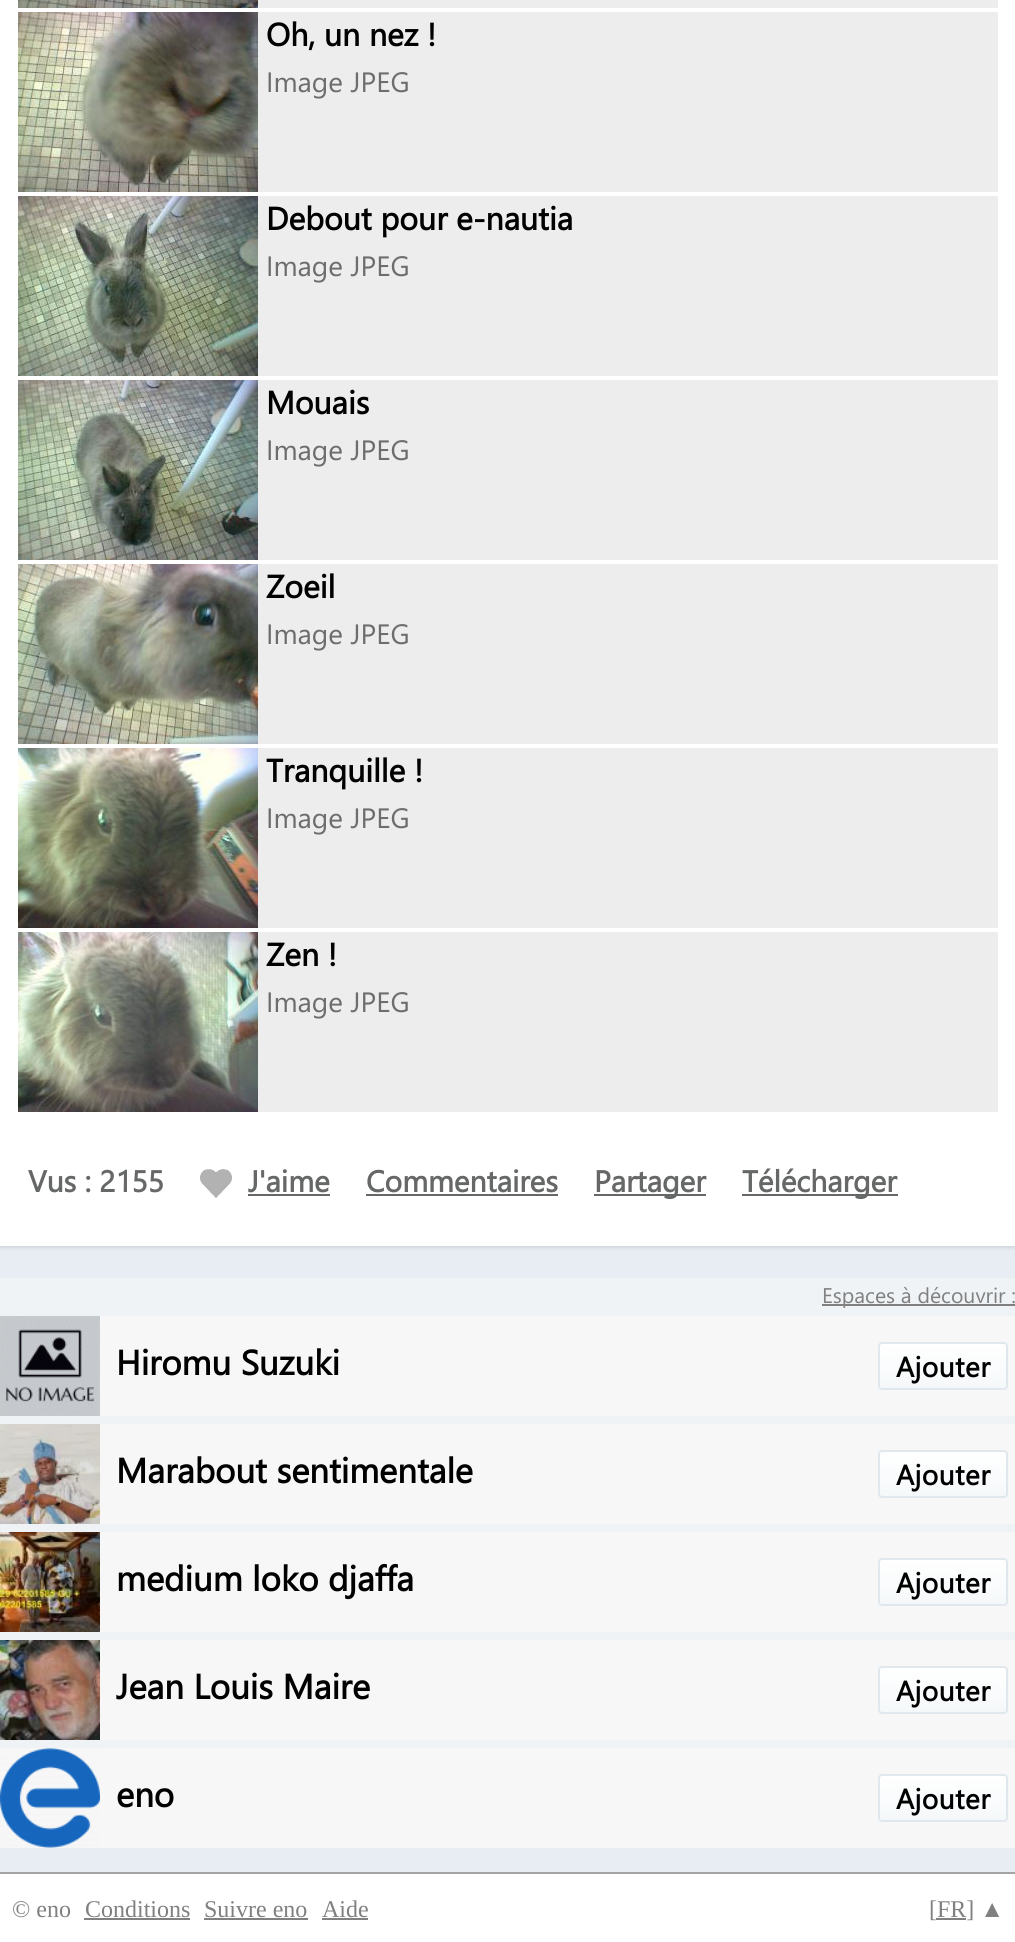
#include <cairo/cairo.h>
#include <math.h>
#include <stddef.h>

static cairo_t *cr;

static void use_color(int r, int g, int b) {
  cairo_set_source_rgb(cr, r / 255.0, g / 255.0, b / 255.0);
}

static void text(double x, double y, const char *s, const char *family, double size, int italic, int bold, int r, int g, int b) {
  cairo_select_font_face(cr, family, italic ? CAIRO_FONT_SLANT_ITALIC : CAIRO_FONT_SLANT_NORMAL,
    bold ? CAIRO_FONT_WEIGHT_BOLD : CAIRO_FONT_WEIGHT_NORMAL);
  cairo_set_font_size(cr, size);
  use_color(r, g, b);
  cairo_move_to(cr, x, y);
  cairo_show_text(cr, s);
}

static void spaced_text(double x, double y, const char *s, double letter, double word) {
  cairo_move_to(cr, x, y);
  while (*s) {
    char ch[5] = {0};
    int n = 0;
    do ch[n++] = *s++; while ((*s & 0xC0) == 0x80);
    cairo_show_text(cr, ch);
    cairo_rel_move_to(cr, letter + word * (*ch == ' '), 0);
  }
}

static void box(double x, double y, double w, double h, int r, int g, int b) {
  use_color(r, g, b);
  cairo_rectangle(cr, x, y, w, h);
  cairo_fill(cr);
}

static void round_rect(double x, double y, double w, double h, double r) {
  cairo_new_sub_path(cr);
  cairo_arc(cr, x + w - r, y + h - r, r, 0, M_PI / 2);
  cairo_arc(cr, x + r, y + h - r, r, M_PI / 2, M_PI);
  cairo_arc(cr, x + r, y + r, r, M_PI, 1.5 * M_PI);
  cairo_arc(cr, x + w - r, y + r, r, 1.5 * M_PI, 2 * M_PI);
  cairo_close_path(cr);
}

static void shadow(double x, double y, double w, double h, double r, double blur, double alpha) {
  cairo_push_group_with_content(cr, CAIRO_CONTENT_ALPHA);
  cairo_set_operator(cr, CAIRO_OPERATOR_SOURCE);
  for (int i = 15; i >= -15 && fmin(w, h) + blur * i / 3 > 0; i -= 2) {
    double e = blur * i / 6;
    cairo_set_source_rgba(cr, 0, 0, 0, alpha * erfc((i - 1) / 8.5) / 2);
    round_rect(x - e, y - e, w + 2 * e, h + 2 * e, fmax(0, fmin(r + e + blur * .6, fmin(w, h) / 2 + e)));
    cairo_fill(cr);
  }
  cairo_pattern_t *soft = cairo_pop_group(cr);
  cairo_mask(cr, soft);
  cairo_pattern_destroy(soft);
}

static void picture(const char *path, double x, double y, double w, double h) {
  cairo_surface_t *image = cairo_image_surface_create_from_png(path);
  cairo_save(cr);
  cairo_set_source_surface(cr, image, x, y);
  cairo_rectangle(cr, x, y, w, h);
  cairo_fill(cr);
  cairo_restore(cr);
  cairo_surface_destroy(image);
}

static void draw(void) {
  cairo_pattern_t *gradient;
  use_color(255, 255, 255);
  cairo_paint(cr);
  box(0, 1246, 1015, 626, 231, 237, 242);
  use_color(0, 0, 0);
  shadow(0, -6, 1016, 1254, 0, 2, 0.1);
  box(0, 0, 1015, 1246, 255, 255, 255);
  box(258, 0, 740, 8, 238, 237, 237);
  picture("img_01.png", 18, 0, 240, 8);
  box(258, 12, 740, 180, 238, 237, 237);
  picture("img_02.png", 18, 12, 240, 180);
  box(258, 196, 740, 180, 238, 237, 237);
  picture("img_03.png", 18, 196, 240, 180);
  box(258, 380, 740, 180, 238, 237, 237);
  picture("img_04.png", 18, 380, 240, 180);
  box(258, 564, 740, 180, 238, 237, 237);
  picture("img_05.png", 18, 564, 240, 180);
  box(258, 748, 740, 180, 238, 237, 237);
  picture("img_06.png", 18, 748, 240, 180);
  box(258, 932, 740, 180, 238, 237, 237);
  picture("img_07.png", 18, 932, 240, 180);
  picture("img_08.png", 200, 1169, 32, 29);
  box(248, 1194, 82, 2, 102, 103, 103);
  box(366, 1194, 192, 2, 102, 103, 103);
  box(594, 1194, 112, 2, 102, 103, 103);
  box(742, 1194, 156, 2, 102, 103, 103);
  box(0, 1278, 1015, 470, 239, 243, 245);
  box(822, 1304, 193, 2, 128, 128, 128);
  box(100, 1316, 915, 100, 247, 247, 247);
  picture("img_09.png", 0, 1316, 100, 100);
  cairo_save(cr);
  round_rect(878, 1342, 130, 48, 4);
  cairo_clip(cr);
  gradient = cairo_pattern_create_linear(943, 1344, 943, 1388);
  cairo_pattern_add_color_stop_rgba(gradient, 0, 1, 1, 1, 1);
  cairo_pattern_add_color_stop_rgba(gradient, 1, 0.961, 0.973, 0.98, 1);
  cairo_set_source(cr, gradient);
  cairo_pattern_destroy(gradient);
  cairo_rectangle(cr, 878, 1344, 130, 44);
  cairo_fill(cr);
  cairo_restore(cr);
  round_rect(879, 1343, 128, 46, 3);
  use_color(225, 232, 237);
  cairo_stroke(cr);
  box(100, 1424, 915, 100, 247, 247, 247);
  picture("img_10.png", 0, 1424, 100, 100);
  cairo_save(cr);
  round_rect(878, 1450, 130, 48, 4);
  cairo_clip(cr);
  gradient = cairo_pattern_create_linear(943, 1452, 943, 1496);
  cairo_pattern_add_color_stop_rgba(gradient, 0, 1, 1, 1, 1);
  cairo_pattern_add_color_stop_rgba(gradient, 1, 0.961, 0.973, 0.98, 1);
  cairo_set_source(cr, gradient);
  cairo_pattern_destroy(gradient);
  cairo_rectangle(cr, 878, 1452, 130, 44);
  cairo_fill(cr);
  cairo_restore(cr);
  round_rect(879, 1451, 128, 46, 3);
  use_color(225, 232, 237);
  cairo_stroke(cr);
  box(100, 1532, 915, 100, 247, 247, 247);
  picture("img_11.png", 0, 1532, 100, 100);
  cairo_save(cr);
  round_rect(878, 1558, 130, 48, 4);
  cairo_clip(cr);
  gradient = cairo_pattern_create_linear(943, 1560, 943, 1604);
  cairo_pattern_add_color_stop_rgba(gradient, 0, 1, 1, 1, 1);
  cairo_pattern_add_color_stop_rgba(gradient, 1, 0.961, 0.973, 0.98, 1);
  cairo_set_source(cr, gradient);
  cairo_pattern_destroy(gradient);
  cairo_rectangle(cr, 878, 1560, 130, 44);
  cairo_fill(cr);
  cairo_restore(cr);
  round_rect(879, 1559, 128, 46, 3);
  use_color(225, 232, 237);
  cairo_stroke(cr);
  box(100, 1640, 915, 100, 247, 247, 247);
  picture("img_12.png", 0, 1640, 100, 100);
  cairo_save(cr);
  round_rect(878, 1666, 130, 48, 4);
  cairo_clip(cr);
  gradient = cairo_pattern_create_linear(943, 1668, 943, 1712);
  cairo_pattern_add_color_stop_rgba(gradient, 0, 1, 1, 1, 1);
  cairo_pattern_add_color_stop_rgba(gradient, 1, 0.961, 0.973, 0.98, 1);
  cairo_set_source(cr, gradient);
  cairo_pattern_destroy(gradient);
  cairo_rectangle(cr, 878, 1668, 130, 44);
  cairo_fill(cr);
  cairo_restore(cr);
  round_rect(879, 1667, 128, 46, 3);
  use_color(225, 232, 237);
  cairo_stroke(cr);
  box(0, 1748, 1015, 100, 247, 247, 247);
  picture("img_13.png", 0, 1748, 100, 100);
  cairo_save(cr);
  round_rect(878, 1774, 130, 48, 4);
  cairo_clip(cr);
  gradient = cairo_pattern_create_linear(943, 1776, 943, 1820);
  cairo_pattern_add_color_stop_rgba(gradient, 0, 1, 1, 1, 1);
  cairo_pattern_add_color_stop_rgba(gradient, 1, 0.961, 0.973, 0.98, 1);
  cairo_set_source(cr, gradient);
  cairo_pattern_destroy(gradient);
  cairo_rectangle(cr, 878, 1776, 130, 44);
  cairo_fill(cr);
  cairo_restore(cr);
  round_rect(879, 1775, 128, 46, 3);
  use_color(225, 232, 237);
  cairo_stroke(cr);
  box(0, 1872, 1015, 2, 164, 164, 164);
  box(84, 1918, 106, 2, 128, 128, 128);
  box(204, 1918, 104, 2, 128, 128, 128);
  box(322, 1918, 46, 2, 128, 128, 128);
  box(936, 1918, 30, 2, 128, 128, 128);
  text(266, 46, "Oh, un nez !", "Segoe UI", 32, 0, 1, 0, 0, 0);
  text(266, 92, "Image JPEG", "Segoe UI", 28, 0, 0, 109, 109, 109);
  text(266, 230, "Debout pour e-nautia", "Segoe UI", 32, 0, 1, 0, 0, 0);
  text(266, 276, "Image JPEG", "Segoe UI", 28, 0, 0, 109, 109, 109);
  text(266, 414, "Mouais", "Segoe UI", 32, 0, 1, 0, 0, 0);
  text(266, 460, "Image JPEG", "Segoe UI", 28, 0, 0, 109, 109, 109);
  text(266, 598, "Zoeil", "Segoe UI", 32, 0, 1, 0, 0, 0);
  text(266, 644, "Image JPEG", "Segoe UI", 28, 0, 0, 109, 109, 109);
  text(266, 782, "Tranquille !", "Segoe UI", 32, 0, 1, 0, 0, 0);
  text(266, 828, "Image JPEG", "Segoe UI", 28, 0, 0, 109, 109, 109);
  text(266, 966, "Zen !", "Segoe UI", 32, 0, 1, 0, 0, 0);
  text(266, 1012, "Image JPEG", "Segoe UI", 28, 0, 0, 109, 109, 109);
  text(28, 1192, "Vus : 2155", "Segoe UI", 30, 0, 1, 102, 103, 103);
  text(248, 1192, "J'aime", "Segoe UI", 30, 0, 1, 102, 103, 103);
  text(366, 1192, "Commentaires", "Segoe UI", 30, 0, 1, 102, 103, 103);
  text(594, 1192, "Partager", "Segoe UI", 30, 0, 1, 102, 103, 103);
  text(742, 1192, "Télécharger", "Segoe UI", 30, 0, 1, 102, 103, 103);
  text(822, 1303, "Espaces à découvrir :", "Segoe UI", 21.25, 0, 0, 128, 128, 128);
  text(116, 1375, "Hiromu Suzuki", "Segoe UI", 34.75, 0, 1, 0, 0, 0);
  cairo_set_font_size(cr, 28);
  spaced_text(896, 1377, "Ajouter", 0.5, 0);
  text(116, 1483, "Marabout sentimentale", "Segoe UI", 34.75, 0, 1, 0, 0, 0);
  cairo_set_font_size(cr, 28);
  spaced_text(896, 1485, "Ajouter", 0.5, 0);
  text(116, 1591, "medium loko djaffa", "Segoe UI", 34.75, 0, 1, 0, 0, 0);
  cairo_set_font_size(cr, 28);
  spaced_text(896, 1593, "Ajouter", 0.5, 0);
  text(116, 1699, "Jean Louis Maire", "Segoe UI", 34.75, 0, 1, 0, 0, 0);
  cairo_set_font_size(cr, 28);
  spaced_text(896, 1701, "Ajouter", 0.5, 0);
  text(116, 1807, "eno", "Segoe UI", 34.75, 0, 1, 0, 0, 0);
  cairo_set_font_size(cr, 28);
  spaced_text(896, 1809, "Ajouter", 0.5, 0);
  text(12, 1917, "© eno", "Liberation Serif", 24, 0, 0, 128, 128, 128);
  text(85, 1917, "Conditions", "Liberation Serif", 24, 0, 0, 128, 128, 128);
  text(204, 1917, "Suivre eno", "Liberation Serif", 24, 0, 0, 128, 128, 128);
  text(322, 1917, "Aide", "Liberation Serif", 24, 0, 0, 128, 128, 128);
  text(929, 1917, "[FR] ▲", "Liberation Serif", 24, 0, 0, 128, 128, 128);
}

int main(void) {
  cairo_surface_t *surface = cairo_image_surface_create(CAIRO_FORMAT_RGB24, 1015, 1942);
  cr = cairo_create(surface);
  cairo_font_options_t *options = cairo_font_options_create();
  cairo_font_options_set_hint_metrics(options, CAIRO_HINT_METRICS_OFF);
  cairo_font_options_set_hint_style(options, CAIRO_HINT_STYLE_NONE);
  cairo_set_font_options(cr, options);
  cairo_set_miter_limit(cr, 4);
  draw();
  cairo_surface_write_to_png(surface, "out.png");
  cairo_font_options_destroy(options);
  cairo_destroy(cr);
  cairo_surface_destroy(surface);
  return 0;
}
